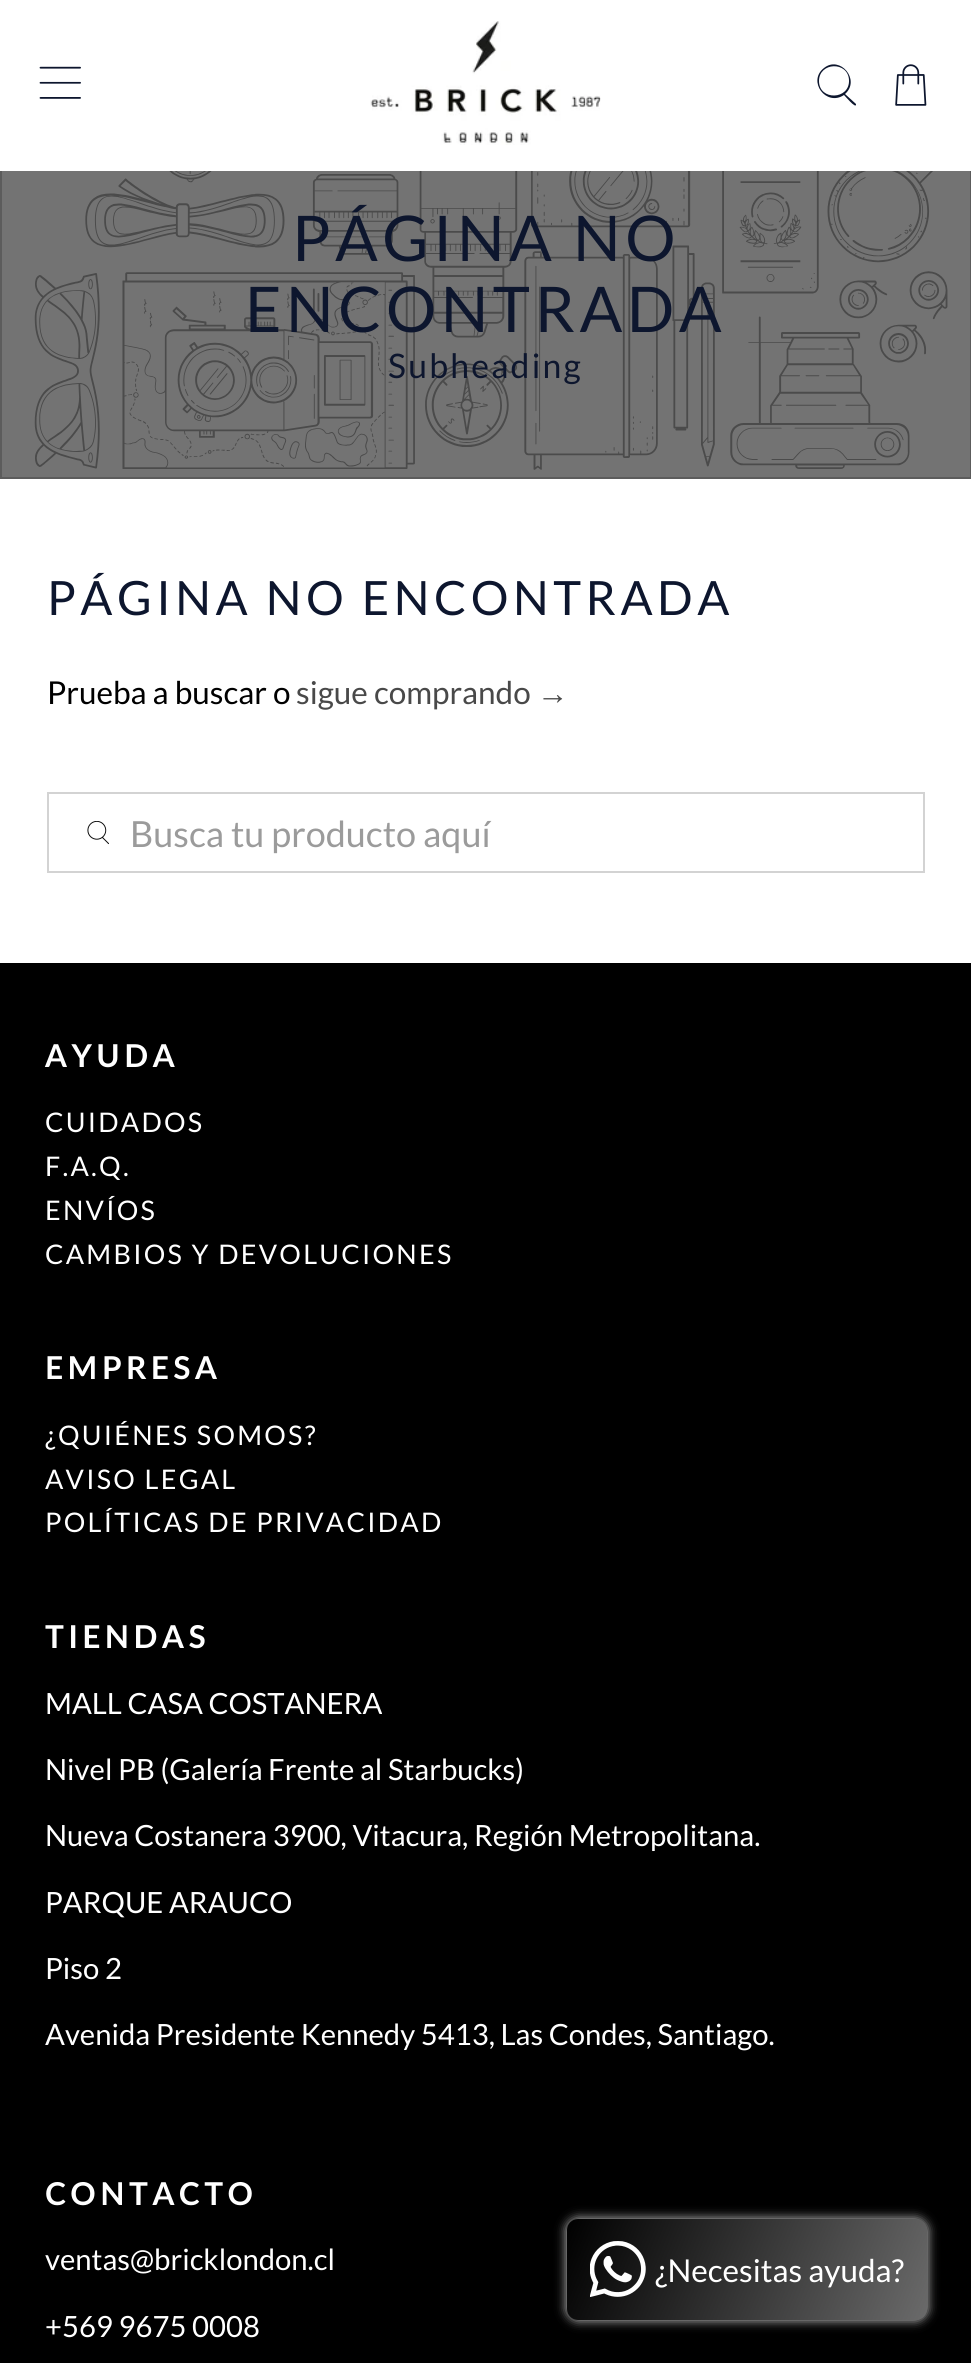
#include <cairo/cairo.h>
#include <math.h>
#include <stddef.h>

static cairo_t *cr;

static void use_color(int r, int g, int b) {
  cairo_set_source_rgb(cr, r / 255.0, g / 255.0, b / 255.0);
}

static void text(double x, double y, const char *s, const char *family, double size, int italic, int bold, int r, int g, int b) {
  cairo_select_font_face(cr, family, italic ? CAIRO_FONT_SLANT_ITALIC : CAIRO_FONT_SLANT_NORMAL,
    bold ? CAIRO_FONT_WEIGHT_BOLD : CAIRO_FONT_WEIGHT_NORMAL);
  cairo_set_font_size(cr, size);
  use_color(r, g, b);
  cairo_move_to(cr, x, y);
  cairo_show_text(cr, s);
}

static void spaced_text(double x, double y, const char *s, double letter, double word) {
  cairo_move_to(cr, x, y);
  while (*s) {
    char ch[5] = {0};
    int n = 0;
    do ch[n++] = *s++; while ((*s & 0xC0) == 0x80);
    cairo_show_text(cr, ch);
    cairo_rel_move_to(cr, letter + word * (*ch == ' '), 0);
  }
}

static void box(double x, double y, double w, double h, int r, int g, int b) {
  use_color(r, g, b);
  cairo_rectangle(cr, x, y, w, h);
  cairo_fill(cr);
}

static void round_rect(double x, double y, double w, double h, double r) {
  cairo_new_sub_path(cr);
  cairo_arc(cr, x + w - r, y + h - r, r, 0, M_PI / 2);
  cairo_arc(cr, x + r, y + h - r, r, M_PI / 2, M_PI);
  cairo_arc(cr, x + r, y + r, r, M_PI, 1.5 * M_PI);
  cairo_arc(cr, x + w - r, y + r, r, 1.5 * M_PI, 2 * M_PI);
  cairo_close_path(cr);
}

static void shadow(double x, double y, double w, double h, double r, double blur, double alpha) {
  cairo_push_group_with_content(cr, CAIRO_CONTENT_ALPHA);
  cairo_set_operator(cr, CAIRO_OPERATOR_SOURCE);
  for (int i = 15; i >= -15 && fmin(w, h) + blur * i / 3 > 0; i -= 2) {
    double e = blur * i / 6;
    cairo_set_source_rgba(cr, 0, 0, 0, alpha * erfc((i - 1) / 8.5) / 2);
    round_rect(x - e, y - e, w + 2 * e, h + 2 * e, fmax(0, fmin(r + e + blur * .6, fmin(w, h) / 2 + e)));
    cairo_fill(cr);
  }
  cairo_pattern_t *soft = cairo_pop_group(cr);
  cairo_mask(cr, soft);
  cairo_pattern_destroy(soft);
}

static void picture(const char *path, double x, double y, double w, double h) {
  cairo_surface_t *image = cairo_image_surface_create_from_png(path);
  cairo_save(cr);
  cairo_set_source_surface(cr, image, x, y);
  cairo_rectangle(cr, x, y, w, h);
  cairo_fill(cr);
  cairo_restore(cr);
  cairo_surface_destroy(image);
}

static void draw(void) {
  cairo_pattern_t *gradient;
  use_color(255, 255, 255);
  cairo_paint(cr);
  box(2, 171, 968, 306, 115, 115, 115);
  cairo_rectangle(cr, 1, 109, 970, 369);
  use_color(92, 92, 92);
  cairo_stroke(cr);
  box(0, 108, 971, 63, 255, 255, 255);
  picture("img_01.png", 39, 66, 42, 33);
  picture("img_02.png", 370, 21, 231, 124);
  use_color(13, 22, 46);
  cairo_new_path(cr);
  cairo_move_to(cr, 856, 104);
  cairo_line_to(cr, 845, 94);
  cairo_curve_to(cr, 861, 80, 840, 55, 824, 68);
  cairo_curve_to(cr, 807, 81, 826, 107, 844, 95);
  cairo_curve_to(cr, 846, 97, 855, 108, 856, 105);
  cairo_close_path(cr);
  cairo_move_to(cr, 819, 81);
  cairo_curve_to(cr, 819, 62, 848, 61, 849, 80);
  cairo_curve_to(cr, 850, 100, 819, 101, 819, 81);
  cairo_close_path(cr);
  cairo_fill(cr);
  picture("img_03.png", 895, 64, 32, 42);
  picture("img_04.png", 34, 171, 914, 299);
  cairo_rectangle(cr, 48, 793, 876, 79);
  use_color(211, 211, 211);
  cairo_stroke(cr);
  picture("img_05.png", 87, 821, 22, 24);
  box(0, 963, 971, 1400, 0, 0, 0);
  use_color(211, 211, 211);
  shadow(567, 2219, 360, 101, 11, 5.5, 1);
  gradient = cairo_pattern_create_linear(575, 2198, 919, 2340);
  cairo_pattern_add_color_stop_rgba(gradient, 0, 0, 0, 0, 1);
  cairo_pattern_add_color_stop_rgba(gradient, 1, 0.416, 0.416, 0.416, 1);
  cairo_set_source(cr, gradient);
  cairo_pattern_destroy(gradient);
  round_rect(567, 2219, 360, 101, 11);
  cairo_fill(cr);
  picture("img_06.png", 590, 2241, 56, 56);
  cairo_select_font_face(cr, "Lato", CAIRO_FONT_SLANT_NORMAL, CAIRO_FONT_WEIGHT_NORMAL);
  cairo_set_font_size(cr, 63);
  use_color(13, 22, 46);
  spaced_text(292, 261, "PÁGINA NO", 4.5, 0);
  spaced_text(245, 332, "ENCONTRADA", 4.5, 0);
  cairo_set_font_size(cr, 33.75);
  spaced_text(388, 378, "Subheading", 2.25, 0);
  cairo_set_font_size(cr, 47.25);
  spaced_text(47, 615, "PÁGINA NO ENCONTRADA", 4.5, 0);
  text(47, 704, "Prueba a buscar o", "Lato", 31.5, 0, 0, 0, 0, 0);
  text(296, 704, "sigue comprando", "Lato", 31.5, 0, 0, 73, 73, 73);
  text(537, 704, "→", "Liberation Sans", 31.5, 0, 0, 73, 73, 73);
  text(130, 847, "Busca tu producto aquí", "Lato", 36, 0, 0, 155, 155, 155);
  cairo_select_font_face(cr, "Lato", CAIRO_FONT_SLANT_NORMAL, CAIRO_FONT_WEIGHT_BOLD);
  cairo_set_font_size(cr, 31.5);
  use_color(255, 255, 255);
  spaced_text(45, 1067, "AYUDA", 4.5, 0);
  cairo_select_font_face(cr, "Lato", CAIRO_FONT_SLANT_NORMAL, CAIRO_FONT_WEIGHT_NORMAL);
  cairo_set_font_size(cr, 27);
  spaced_text(45, 1132, "CUIDADOS", 2.25, 0);
  spaced_text(45, 1176, "F.A.Q.", 2.25, 0);
  spaced_text(45, 1220, "ENVÍOS", 2.25, 0);
  spaced_text(45, 1264, "CAMBIOS Y DEVOLUCIONES", 2.25, 0);
  cairo_select_font_face(cr, "Lato", CAIRO_FONT_SLANT_NORMAL, CAIRO_FONT_WEIGHT_BOLD);
  cairo_set_font_size(cr, 31.5);
  spaced_text(45, 1379, "EMPRESA", 4.5, 0);
  cairo_select_font_face(cr, "Lato", CAIRO_FONT_SLANT_NORMAL, CAIRO_FONT_WEIGHT_NORMAL);
  cairo_set_font_size(cr, 27);
  spaced_text(45, 1445, "¿QUIÉNES SOMOS?", 2.25, 0);
  spaced_text(45, 1489, "AVISO LEGAL", 2.25, 0);
  spaced_text(45, 1532, "POLÍTICAS DE PRIVACIDAD", 2.25, 0);
  cairo_select_font_face(cr, "Lato", CAIRO_FONT_SLANT_NORMAL, CAIRO_FONT_WEIGHT_BOLD);
  cairo_set_font_size(cr, 31.5);
  spaced_text(45, 1648, "TIENDAS", 4.5, 0);
  text(45, 1714, "MALL CASA COSTANERA", "Lato", 29.25, 0, 0, 255, 255, 255);
  text(45, 1780, "Nivel PB (Galería Frente al Starbucks)", "Lato", 29.25, 0, 0, 255, 255, 255);
  text(45, 1846, "Nueva Costanera 3900, Vitacura, Región Metropolitana.", "Lato", 29.25, 0, 0, 255, 255, 255);
  text(45, 1913, "PARQUE ARAUCO", "Lato", 29.25, 0, 0, 255, 255, 255);
  text(45, 1979, "Piso 2", "Lato", 29.25, 0, 0, 255, 255, 255);
  text(45, 2045, "Avenida Presidente Kennedy 5413, Las Condes, Santiago.", "Lato", 29.25, 0, 0, 255, 255, 255);
  cairo_select_font_face(cr, "Lato", CAIRO_FONT_SLANT_NORMAL, CAIRO_FONT_WEIGHT_BOLD);
  cairo_set_font_size(cr, 31.5);
  spaced_text(45, 2205, "CONTACTO", 4.5, 0);
  text(45, 2270, "ventas@bricklondon.cl", "Lato", 29.25, 0, 0, 255, 255, 255);
  text(45, 2337, "+569 9675 0008", "Lato", 29.25, 0, 0, 255, 255, 255);
  text(655, 2282, "¿Necesitas ayuda?", "Lato", 31.5, 0, 0, 255, 255, 255);
}

int main(void) {
  cairo_surface_t *surface = cairo_image_surface_create(CAIRO_FORMAT_RGB24, 971, 2363);
  cr = cairo_create(surface);
  cairo_font_options_t *options = cairo_font_options_create();
  cairo_font_options_set_hint_metrics(options, CAIRO_HINT_METRICS_OFF);
  cairo_font_options_set_hint_style(options, CAIRO_HINT_STYLE_NONE);
  cairo_set_font_options(cr, options);
  cairo_set_miter_limit(cr, 4);
  draw();
  cairo_surface_write_to_png(surface, "out.png");
  cairo_font_options_destroy(options);
  cairo_destroy(cr);
  cairo_surface_destroy(surface);
  return 0;
}
